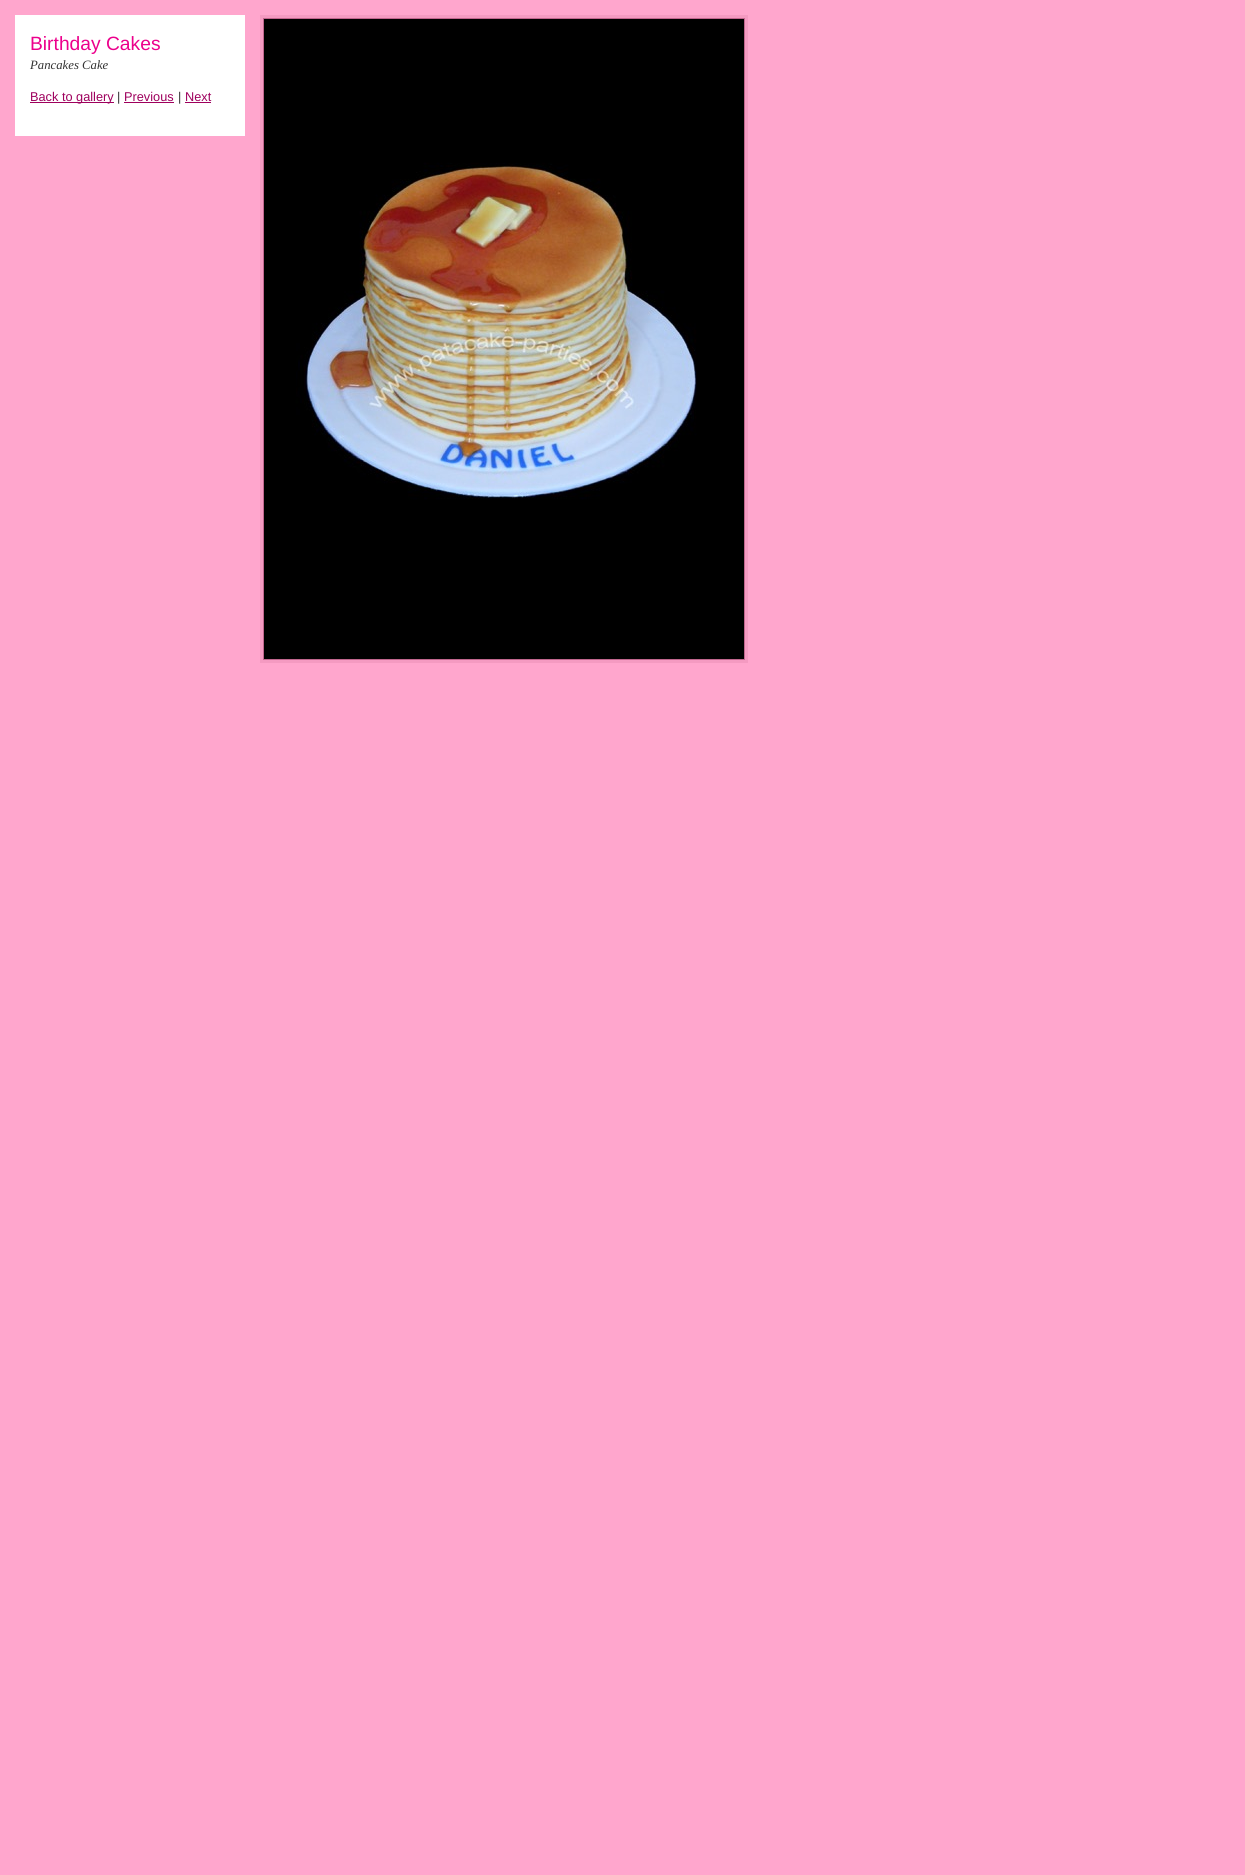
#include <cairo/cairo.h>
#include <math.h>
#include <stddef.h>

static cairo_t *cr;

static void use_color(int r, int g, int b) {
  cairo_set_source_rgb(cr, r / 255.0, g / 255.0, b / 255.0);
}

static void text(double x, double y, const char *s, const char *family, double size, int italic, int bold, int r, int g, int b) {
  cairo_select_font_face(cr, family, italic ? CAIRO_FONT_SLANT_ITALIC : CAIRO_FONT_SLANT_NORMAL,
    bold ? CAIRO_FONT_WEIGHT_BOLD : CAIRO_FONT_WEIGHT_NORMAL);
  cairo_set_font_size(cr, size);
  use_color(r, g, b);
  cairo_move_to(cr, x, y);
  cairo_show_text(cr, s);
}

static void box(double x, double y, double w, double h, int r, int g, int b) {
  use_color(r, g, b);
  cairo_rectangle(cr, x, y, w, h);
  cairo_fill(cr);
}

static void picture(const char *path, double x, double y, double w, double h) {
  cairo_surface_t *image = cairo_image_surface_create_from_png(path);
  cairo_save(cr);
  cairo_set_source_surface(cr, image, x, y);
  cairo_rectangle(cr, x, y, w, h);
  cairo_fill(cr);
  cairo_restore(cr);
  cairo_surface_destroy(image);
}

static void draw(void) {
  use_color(255, 166, 205);
  cairo_paint(cr);
  box(15, 15, 230, 121, 255, 255, 255);
  box(30, 102, 84, 1, 158, 0, 93);
  box(124, 102, 50, 1, 158, 0, 93);
  box(185, 102, 26, 1, 158, 0, 93);
  use_color(192, 102, 141);
  cairo_rectangle(cr, 261.5, 16.5, 485, 645);
  cairo_fill_preserve(cr);
  use_color(244, 154, 193);
  cairo_set_line_width(cr, 3);
  cairo_stroke(cr);
  picture("img_01.png", 264, 19, 480, 640);
  text(30, 50, "Birthday Cakes", "Liberation Sans", 19.25, 0, 0, 236, 0, 140);
  text(30, 69, "Pancakes Cake", "Liberation Serif", 12.75, 1, 0, 51, 51, 51);
  text(30, 101, "Back to gallery", "Liberation Sans", 12.75, 0, 0, 158, 0, 93);
  text(117, 101, "|", "Liberation Sans", 12.75, 0, 0, 51, 51, 51);
  text(124, 101, "Previous", "Liberation Sans", 12.75, 0, 0, 158, 0, 93);
  text(178, 101, "|", "Liberation Sans", 12.75, 0, 0, 51, 51, 51);
  text(185, 101, "Next", "Liberation Sans", 12.75, 0, 0, 158, 0, 93);
}

int main(void) {
  cairo_surface_t *surface = cairo_image_surface_create(CAIRO_FORMAT_RGB24, 1245, 1875);
  cr = cairo_create(surface);
  cairo_font_options_t *options = cairo_font_options_create();
  cairo_font_options_set_hint_metrics(options, CAIRO_HINT_METRICS_OFF);
  cairo_font_options_set_hint_style(options, CAIRO_HINT_STYLE_NONE);
  cairo_set_font_options(cr, options);
  cairo_set_miter_limit(cr, 4);
  draw();
  cairo_surface_write_to_png(surface, "out.png");
  cairo_font_options_destroy(options);
  cairo_destroy(cr);
  cairo_surface_destroy(surface);
  return 0;
}
